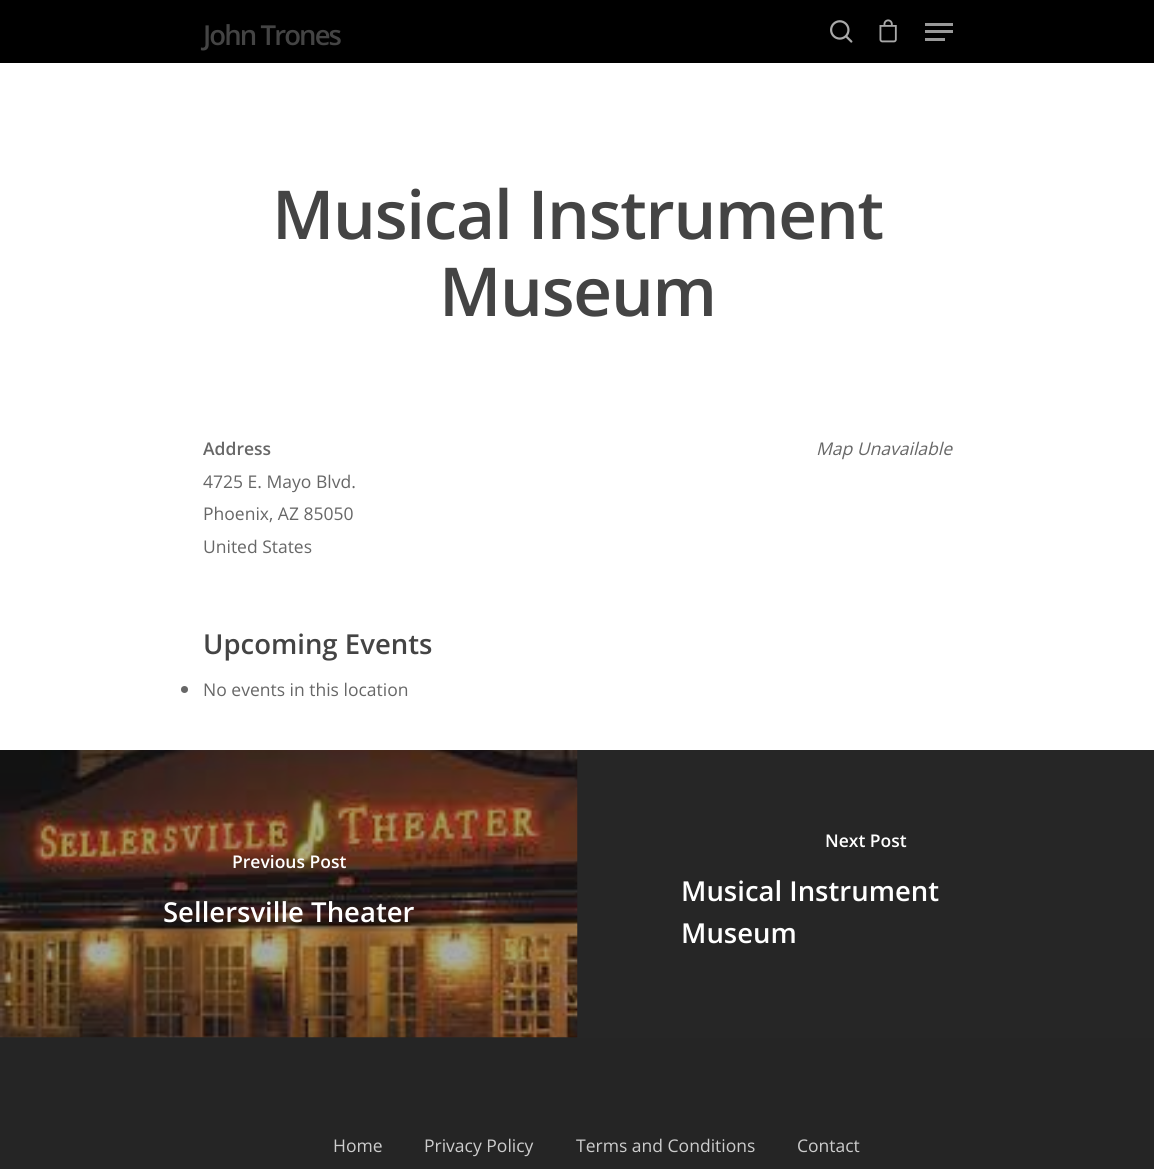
#include <cairo/cairo.h>
#include <math.h>
#include <stddef.h>

static cairo_t *cr;

static void use_color(int r, int g, int b) {
  cairo_set_source_rgb(cr, r / 255.0, g / 255.0, b / 255.0);
}

static void text(double x, double y, const char *s, const char *family, double size, int italic, int bold, int r, int g, int b) {
  cairo_select_font_face(cr, family, italic ? CAIRO_FONT_SLANT_ITALIC : CAIRO_FONT_SLANT_NORMAL,
    bold ? CAIRO_FONT_WEIGHT_BOLD : CAIRO_FONT_WEIGHT_NORMAL);
  cairo_set_font_size(cr, size);
  use_color(r, g, b);
  cairo_move_to(cr, x, y);
  cairo_show_text(cr, s);
}

static void spaced_text(double x, double y, const char *s, double letter, double word) {
  cairo_move_to(cr, x, y);
  while (*s) {
    char ch[5] = {0};
    int n = 0;
    do ch[n++] = *s++; while ((*s & 0xC0) == 0x80);
    cairo_show_text(cr, ch);
    cairo_rel_move_to(cr, letter + word * (*ch == ' '), 0);
  }
}

static void box(double x, double y, double w, double h, int r, int g, int b) {
  use_color(r, g, b);
  cairo_rectangle(cr, x, y, w, h);
  cairo_fill(cr);
}

static void picture(const char *path, double x, double y, double w, double h) {
  cairo_surface_t *image = cairo_image_surface_create_from_png(path);
  cairo_save(cr);
  cairo_set_source_surface(cr, image, x, y);
  cairo_rectangle(cr, x, y, w, h);
  cairo_fill(cr);
  cairo_restore(cr);
  cairo_surface_destroy(image);
}

static void draw(void) {
  use_color(255, 255, 255);
  cairo_paint(cr);
  box(0, 0, 1154, 63, 0, 0, 0);
  picture("img_01.png", 830, 20, 23, 23);
  picture("img_02.png", 879, 19, 18, 24);
  box(925, 23, 28, 3, 153, 153, 153);
  box(925, 38, 20, 3, 153, 153, 153);
  box(925, 30, 28, 3, 153, 153, 153);
  use_color(103, 103, 103);
  cairo_arc(cr, 184.5, 689.5, 3.5, 0, 2 * M_PI);
  cairo_fill(cr);
  box(0, 750, 1154, 288, 38, 38, 38);
  picture("img_03.png", 0, 750, 578, 288);
  box(0, 1038, 1154, 131, 37, 37, 37);
  cairo_select_font_face(cr, "Open Sans SemiBold", CAIRO_FONT_SLANT_NORMAL, CAIRO_FONT_WEIGHT_NORMAL);
  cairo_set_font_size(cr, 27.5);
  use_color(68, 68, 68);
  spaced_text(203, 45, "John Trones", -1.9, 0);
  cairo_set_font_size(cr, 67.5);
  spaced_text(272, 239, "Musical Instrument", -1.25, 0);
  spaced_text(439, 316, "Museum", -1.25, 0);
  text(203, 455, "Address", "Open Sans SemiBold", 17.5, 0, 0, 103, 103, 103);
  text(203, 488, "4725 E. Mayo Blvd.", "Open Sans", 17.5, 0, 0, 103, 103, 103);
  text(203, 520, "Phoenix, AZ 85050", "Open Sans", 17.5, 0, 0, 103, 103, 103);
  text(203, 553, "United States", "Open Sans", 17.5, 0, 0, 103, 103, 103);
  text(816, 455, "Map Unavailable", "Open Sans", 17.5, 1, 0, 103, 103, 103);
  text(203, 654, "Upcoming Events", "Open Sans SemiBold", 27.5, 0, 0, 68, 68, 68);
  text(203, 696, "No events in this location", "Open Sans", 17.5, 0, 0, 103, 103, 103);
  text(232, 868, "Previous Post", "Open Sans SemiBold", 17.5, 0, 0, 255, 255, 255);
  text(163, 922, "Sellersville Theater", "Open Sans SemiBold", 27.5, 0, 0, 255, 255, 255);
  text(825, 847, "Next Post", "Open Sans SemiBold", 17.5, 0, 0, 255, 255, 255);
  text(681, 901, "Musical Instrument", "Open Sans SemiBold", 27.5, 0, 0, 255, 255, 255);
  text(681, 943, "Museum", "Open Sans SemiBold", 27.5, 0, 0, 255, 255, 255);
  text(333, 1152, "Home", "Open Sans", 17.5, 0, 0, 204, 204, 204);
  text(424, 1152, "Privacy Policy", "Open Sans", 17.5, 0, 0, 204, 204, 204);
  text(576, 1152, "Terms and Conditions", "Open Sans", 17.5, 0, 0, 204, 204, 204);
  text(797, 1152, "Contact", "Open Sans", 17.5, 0, 0, 204, 204, 204);
}

int main(void) {
  cairo_surface_t *surface = cairo_image_surface_create(CAIRO_FORMAT_RGB24, 1154, 1169);
  cr = cairo_create(surface);
  cairo_font_options_t *options = cairo_font_options_create();
  cairo_font_options_set_hint_metrics(options, CAIRO_HINT_METRICS_OFF);
  cairo_font_options_set_hint_style(options, CAIRO_HINT_STYLE_NONE);
  cairo_set_font_options(cr, options);
  cairo_set_miter_limit(cr, 4);
  draw();
  cairo_surface_write_to_png(surface, "out.png");
  cairo_font_options_destroy(options);
  cairo_destroy(cr);
  cairo_surface_destroy(surface);
  return 0;
}
